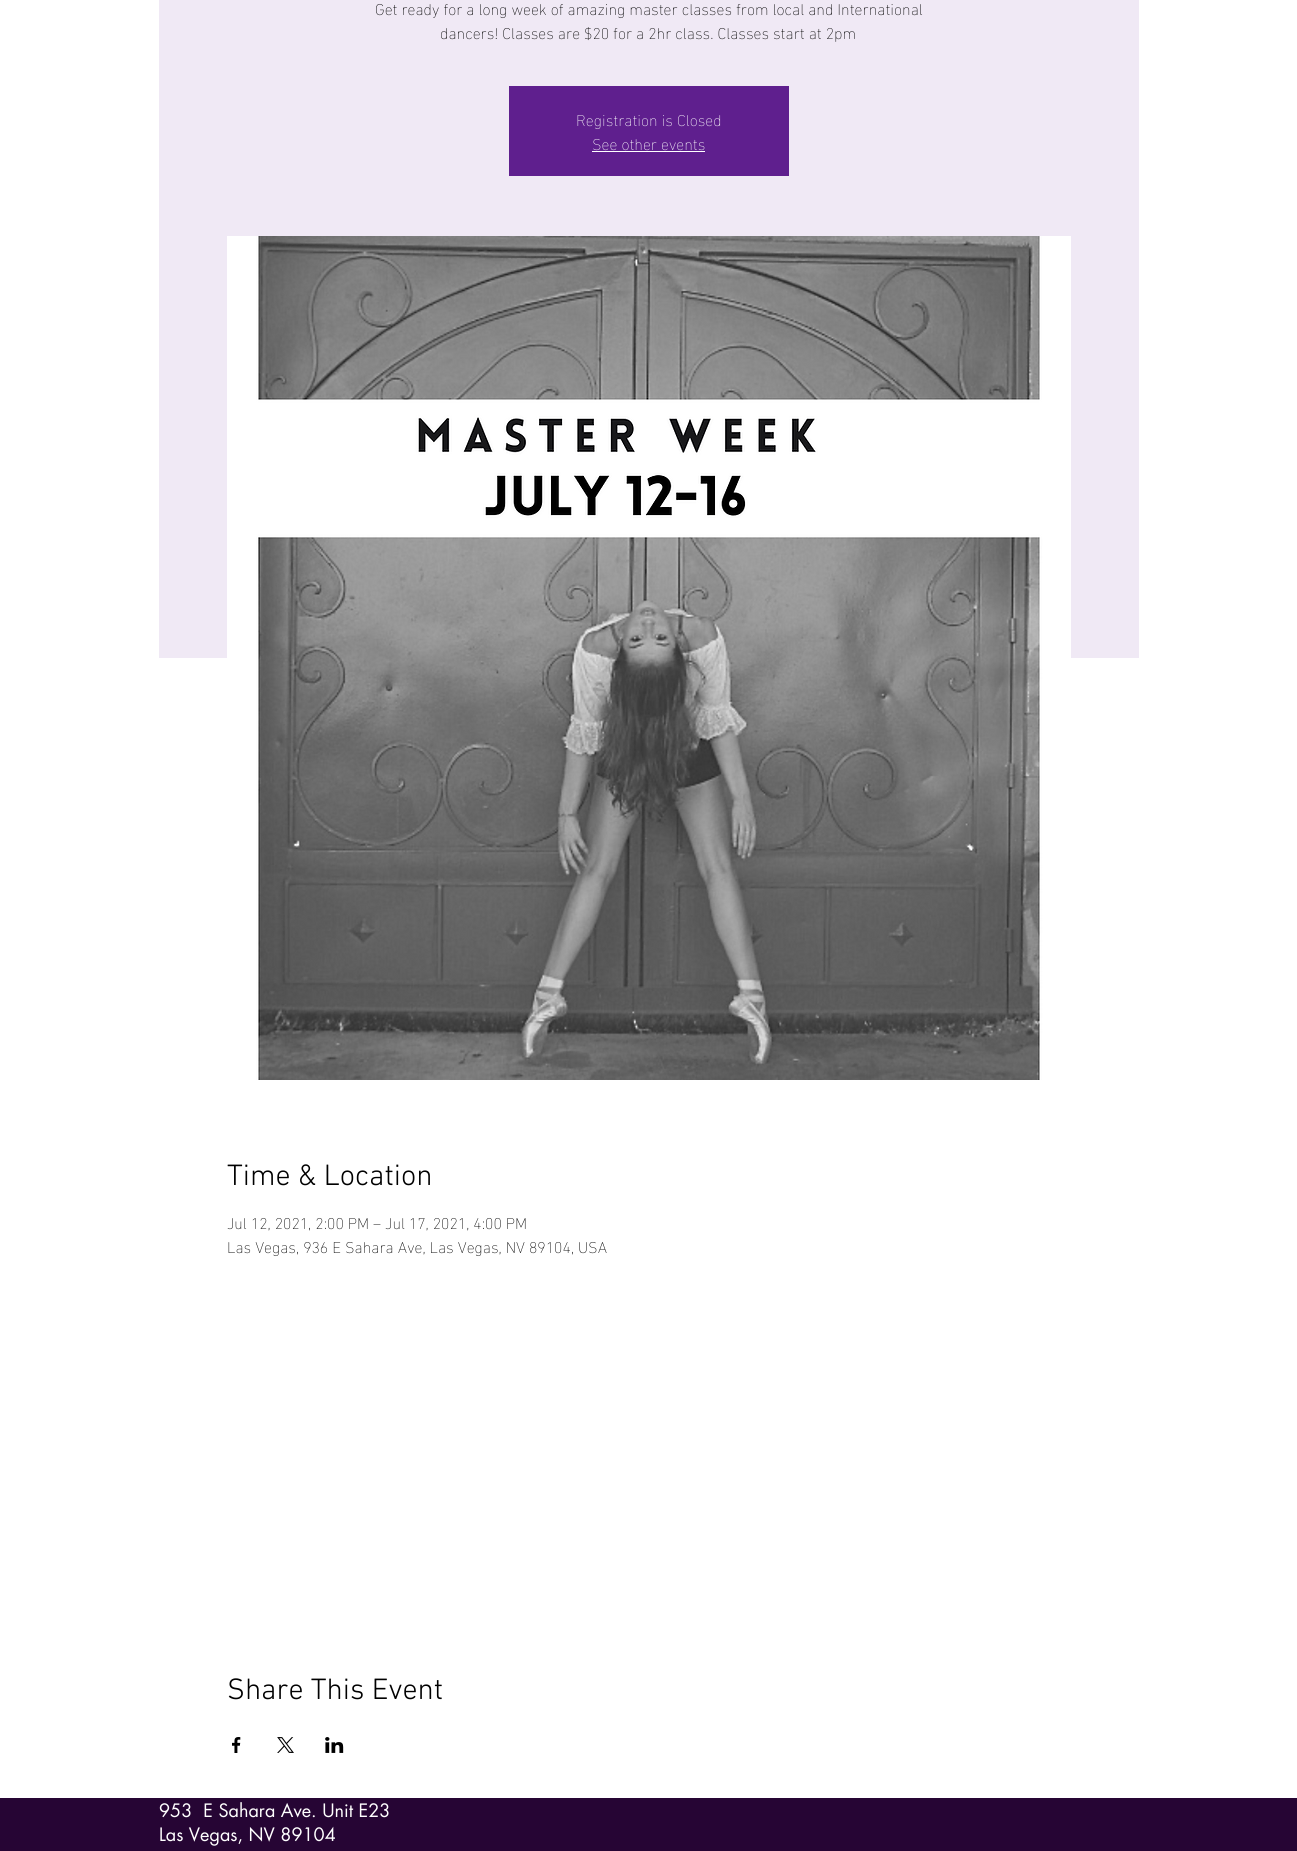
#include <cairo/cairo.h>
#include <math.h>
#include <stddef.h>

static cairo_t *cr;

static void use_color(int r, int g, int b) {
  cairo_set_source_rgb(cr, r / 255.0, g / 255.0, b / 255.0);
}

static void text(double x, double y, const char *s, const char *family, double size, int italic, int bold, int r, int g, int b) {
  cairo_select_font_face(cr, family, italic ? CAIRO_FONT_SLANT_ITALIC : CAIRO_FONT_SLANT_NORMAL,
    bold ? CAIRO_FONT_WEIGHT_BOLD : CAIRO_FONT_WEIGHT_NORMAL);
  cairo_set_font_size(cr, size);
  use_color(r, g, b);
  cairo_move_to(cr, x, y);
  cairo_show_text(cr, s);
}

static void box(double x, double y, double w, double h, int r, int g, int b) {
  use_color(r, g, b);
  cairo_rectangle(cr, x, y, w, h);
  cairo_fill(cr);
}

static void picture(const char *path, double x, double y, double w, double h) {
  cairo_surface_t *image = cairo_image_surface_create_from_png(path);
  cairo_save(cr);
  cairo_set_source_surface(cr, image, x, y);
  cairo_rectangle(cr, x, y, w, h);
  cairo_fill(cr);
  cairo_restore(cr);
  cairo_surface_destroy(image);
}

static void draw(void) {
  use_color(255, 255, 255);
  cairo_paint(cr);
  box(159, 0, 980, 658, 240, 233, 245);
  box(509, 86, 280, 90, 95, 31, 142);
  box(592, 151, 113, 1, 255, 255, 255);
  picture("img_01.png", 227, 236, 844, 844);
  picture("img_02.png", 232, 1737, 9, 16);
  picture("img_03.png", 277, 1737, 17, 16);
  picture("img_04.png", 325, 1737, 19, 16);
  box(0, 1798, 1297, 53, 38, 5, 52);
  text(375, 15, "Get ready for a long week of amazing master classes from local and International", "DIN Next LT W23 ExtraLight", 16, 0, 0, 0, 0, 0);
  text(440, 39, "dancers! Classes are $20 for a 2hr class. Classes start at 2pm", "DIN Next LT W23 ExtraLight", 16, 0, 0, 0, 0, 0);
  text(576, 126, "Registration is Closed", "DIN Next LT W23 ExtraLight", 16, 0, 0, 255, 255, 255);
  text(592, 150, "See other events", "DIN Next LT W23 ExtraLight", 16, 0, 0, 255, 255, 255);
  text(227, 1185, "Time & Location", "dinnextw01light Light", 30, 0, 0, 0, 0, 0);
  text(227, 1229, "Jul 12, 2021, 2:00 PM – Jul 17, 2021, 4:00 PM", "DIN Next LT W23 ExtraLight", 16, 0, 0, 0, 0, 0);
  text(227, 1253, "Las Vegas, 936 E Sahara Ave, Las Vegas, NV 89104, USA", "DIN Next LT W23 ExtraLight", 16, 0, 0, 0, 0, 0);
  text(227, 1699, "Share This Event", "dinnextw01light Light", 30, 0, 0, 0, 0, 0);
  text(159, 1817, "953  E Sahara Ave. Unit E23", "futura", 18, 0, 0, 255, 255, 255);
  text(159, 1841, "Las Vegas, NV 89104", "futura", 18, 0, 0, 255, 255, 255);
}

int main(void) {
  cairo_surface_t *surface = cairo_image_surface_create(CAIRO_FORMAT_RGB24, 1297, 1851);
  cr = cairo_create(surface);
  cairo_font_options_t *options = cairo_font_options_create();
  cairo_font_options_set_hint_metrics(options, CAIRO_HINT_METRICS_OFF);
  cairo_font_options_set_hint_style(options, CAIRO_HINT_STYLE_NONE);
  cairo_set_font_options(cr, options);
  cairo_set_miter_limit(cr, 4);
  draw();
  cairo_surface_write_to_png(surface, "out.png");
  cairo_font_options_destroy(options);
  cairo_destroy(cr);
  cairo_surface_destroy(surface);
  return 0;
}
